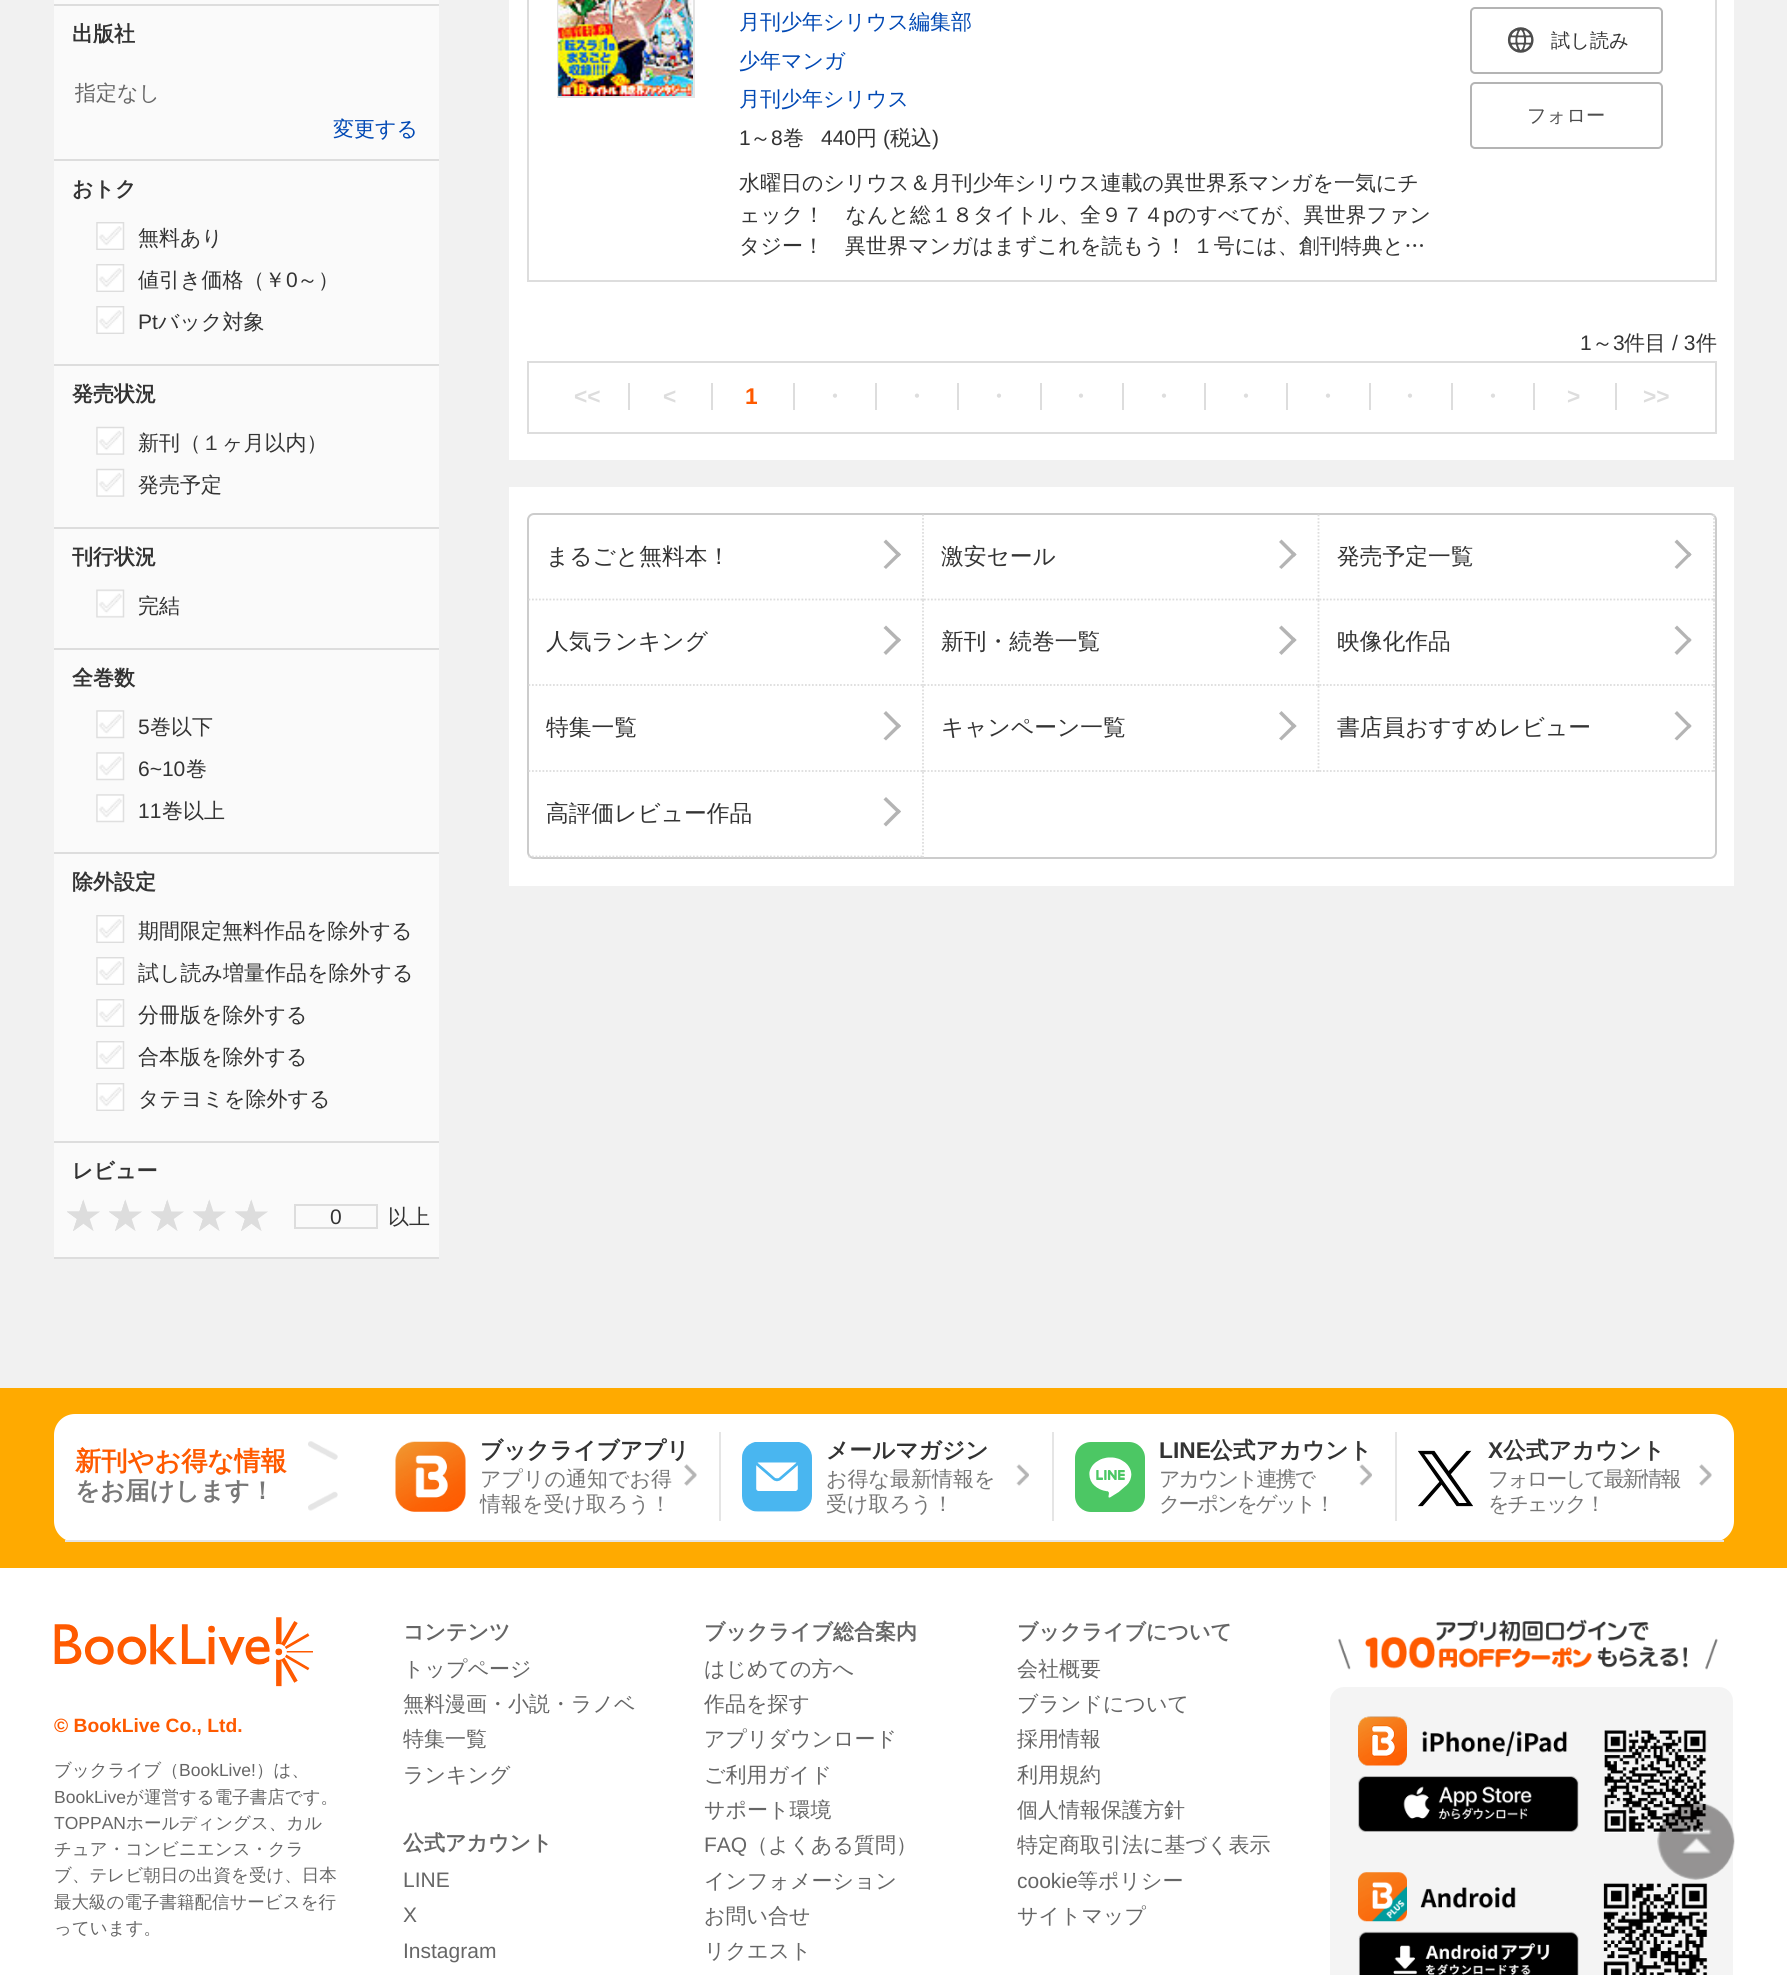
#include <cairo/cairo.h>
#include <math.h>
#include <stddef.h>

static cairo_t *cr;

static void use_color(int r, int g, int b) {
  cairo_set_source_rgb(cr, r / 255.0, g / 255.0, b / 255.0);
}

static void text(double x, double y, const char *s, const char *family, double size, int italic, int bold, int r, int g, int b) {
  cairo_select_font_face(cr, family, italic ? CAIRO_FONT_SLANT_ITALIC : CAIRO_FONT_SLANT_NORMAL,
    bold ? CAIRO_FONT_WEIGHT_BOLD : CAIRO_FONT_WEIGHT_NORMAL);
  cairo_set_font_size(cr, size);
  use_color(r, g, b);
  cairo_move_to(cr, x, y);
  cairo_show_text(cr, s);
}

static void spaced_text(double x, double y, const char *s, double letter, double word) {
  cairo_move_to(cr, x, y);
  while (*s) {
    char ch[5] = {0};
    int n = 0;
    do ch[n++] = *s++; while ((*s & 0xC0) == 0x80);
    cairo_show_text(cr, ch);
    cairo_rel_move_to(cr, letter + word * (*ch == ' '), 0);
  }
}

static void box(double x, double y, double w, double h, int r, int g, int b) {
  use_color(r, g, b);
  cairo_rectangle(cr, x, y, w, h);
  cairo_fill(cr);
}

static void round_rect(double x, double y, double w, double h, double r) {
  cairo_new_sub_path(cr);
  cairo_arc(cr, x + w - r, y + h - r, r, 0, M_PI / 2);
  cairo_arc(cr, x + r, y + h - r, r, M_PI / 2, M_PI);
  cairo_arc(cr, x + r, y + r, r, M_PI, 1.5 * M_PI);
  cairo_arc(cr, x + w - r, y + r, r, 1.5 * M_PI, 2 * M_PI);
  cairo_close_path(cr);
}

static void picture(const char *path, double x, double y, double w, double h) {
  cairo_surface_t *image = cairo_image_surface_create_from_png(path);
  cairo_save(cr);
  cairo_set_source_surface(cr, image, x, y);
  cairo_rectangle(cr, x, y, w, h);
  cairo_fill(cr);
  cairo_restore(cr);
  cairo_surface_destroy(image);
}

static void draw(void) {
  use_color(241, 241, 241);
  cairo_paint(cr);
  box(54, 0, 385, 1257, 250, 250, 250);
  box(54, 1257, 385, 2, 221, 221, 221);
  box(54, 4, 385, 2, 221, 221, 221);
  box(54, 159, 385, 2, 221, 221, 221);
  picture("img_01.png", 96, 222, 29, 28);
  picture("img_01.png", 96, 264, 29, 28);
  picture("img_01.png", 96, 306, 29, 28);
  box(54, 364, 385, 2, 221, 221, 221);
  picture("img_02.png", 96, 426, 29, 29);
  picture("img_03.png", 96, 468, 29, 29);
  box(54, 527, 385, 2, 221, 221, 221);
  picture("img_04.png", 96, 589, 29, 29);
  box(54, 648, 385, 2, 221, 221, 221);
  picture("img_05.png", 96, 710, 29, 29);
  picture("img_05.png", 96, 752, 29, 29);
  picture("img_05.png", 96, 794, 29, 29);
  box(54, 852, 385, 2, 221, 221, 221);
  picture("img_01.png", 96, 915, 29, 28);
  picture("img_01.png", 96, 957, 29, 28);
  picture("img_01.png", 96, 999, 29, 28);
  picture("img_01.png", 96, 1041, 29, 28);
  picture("img_01.png", 96, 1083, 29, 28);
  box(54, 1141, 385, 2, 221, 221, 221);
  picture("img_06.png", 67, 1199, 33, 32);
  picture("img_07.png", 67, 1201, 16, 30);
  picture("img_06.png", 109, 1199, 33, 32);
  picture("img_07.png", 109, 1201, 16, 30);
  picture("img_06.png", 151, 1199, 33, 32);
  picture("img_07.png", 151, 1201, 16, 30);
  picture("img_06.png", 193, 1199, 33, 32);
  picture("img_07.png", 193, 1201, 16, 30);
  picture("img_08.png", 235, 1199, 33, 32);
  picture("img_07.png", 235, 1201, 16, 30);
  cairo_rectangle(cr, 295, 1205, 82, 23);
  cairo_stroke(cr);
  box(509, 0, 1225, 460, 255, 255, 255);
  box(1715, 0, 2, 282, 221, 221, 221);
  box(527, 0, 2, 282, 221, 221, 221);
  box(529, 280, 1186, 2, 221, 221, 221);
  cairo_rectangle(cr, 558, -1, 136, 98);
  use_color(229, 229, 229);
  cairo_stroke(cr);
  picture("img_09.png", 558, 0, 135, 96);
  round_rect(1471, 8, 191, 65, 4);
  use_color(180, 180, 180);
  cairo_stroke(cr);
  picture("img_10.png", 1507, 27, 27, 26);
  round_rect(1471, 83, 191, 65, 4);
  cairo_stroke(cr);
  cairo_rectangle(cr, 528, 362, 1188, 71);
  use_color(221, 221, 221);
  cairo_stroke(cr);
  box(628, 383, 2, 27, 221, 221, 221);
  box(711, 383, 2, 27, 221, 221, 221);
  box(793, 383, 2, 27, 221, 221, 221);
  box(875, 383, 2, 27, 221, 221, 221);
  box(957, 383, 2, 27, 221, 221, 221);
  box(1040, 383, 2, 27, 221, 221, 221);
  box(1122, 383, 2, 27, 221, 221, 221);
  box(1204, 383, 2, 27, 221, 221, 221);
  box(1286, 383, 2, 27, 221, 221, 221);
  box(1369, 383, 2, 27, 221, 221, 221);
  box(1451, 383, 2, 27, 221, 221, 221);
  box(1533, 383, 2, 27, 221, 221, 221);
  box(1615, 383, 2, 27, 221, 221, 221);
  box(509, 487, 1225, 399, 255, 255, 255);
  round_rect(528, 514, 1188, 344, 6);
  use_color(204, 204, 204);
  cairo_stroke(cr);
  cairo_new_path(cr);
  cairo_move_to(cr, 923, 514.5);
  cairo_line_to(cr, 923, 600);
  use_color(221, 221, 221);
  cairo_set_line_width(cr, 1.8);
  cairo_set_dash(cr, (double[]){1.75, 1.75}, 2, 0);
  cairo_stroke(cr);
  cairo_new_path(cr);
  cairo_move_to(cr, 528.5, 599.5);
  cairo_line_to(cr, 924, 599.5);
  cairo_stroke(cr);
  use_color(180, 180, 180);
  cairo_new_path(cr);
  cairo_move_to(cr, 886, 539.5);
  cairo_line_to(cr, 901, 554.5);
  cairo_line_to(cr, 898.5, 557);
  cairo_line_to(cr, 883.5, 542);
  cairo_close_path(cr);
  cairo_fill(cr);
  cairo_new_path(cr);
  cairo_move_to(cr, 898.5, 552);
  cairo_line_to(cr, 901, 554.5);
  cairo_line_to(cr, 886, 569);
  cairo_line_to(cr, 883.5, 567);
  cairo_close_path(cr);
  cairo_fill(cr);
  cairo_new_path(cr);
  cairo_move_to(cr, 1318.5, 514.5);
  cairo_line_to(cr, 1318.5, 600);
  use_color(221, 221, 221);
  cairo_stroke(cr);
  cairo_new_path(cr);
  cairo_move_to(cr, 924, 599.5);
  cairo_line_to(cr, 1319.5, 599.5);
  cairo_stroke(cr);
  use_color(180, 180, 180);
  cairo_new_path(cr);
  cairo_move_to(cr, 1281.5, 539.5);
  cairo_line_to(cr, 1296.5, 554.5);
  cairo_line_to(cr, 1294, 557);
  cairo_line_to(cr, 1279, 542);
  cairo_close_path(cr);
  cairo_fill(cr);
  cairo_new_path(cr);
  cairo_move_to(cr, 1294, 552);
  cairo_line_to(cr, 1296.5, 554.5);
  cairo_line_to(cr, 1281.5, 569);
  cairo_line_to(cr, 1279, 567);
  cairo_close_path(cr);
  cairo_fill(cr);
  cairo_new_path(cr);
  cairo_move_to(cr, 1714, 514.5);
  cairo_line_to(cr, 1714, 600);
  use_color(221, 221, 221);
  cairo_stroke(cr);
  cairo_new_path(cr);
  cairo_move_to(cr, 1319.5, 599.5);
  cairo_line_to(cr, 1715, 599.5);
  cairo_stroke(cr);
  use_color(180, 180, 180);
  cairo_new_path(cr);
  cairo_move_to(cr, 1677, 539.5);
  cairo_line_to(cr, 1691.5, 554.5);
  cairo_line_to(cr, 1689.5, 557);
  cairo_line_to(cr, 1674.5, 542);
  cairo_close_path(cr);
  cairo_fill(cr);
  cairo_new_path(cr);
  cairo_move_to(cr, 1689.5, 552);
  cairo_line_to(cr, 1691.5, 554.5);
  cairo_line_to(cr, 1677, 569);
  cairo_line_to(cr, 1674.5, 567);
  cairo_close_path(cr);
  cairo_fill(cr);
  cairo_new_path(cr);
  cairo_move_to(cr, 923, 600);
  cairo_line_to(cr, 923, 686);
  use_color(221, 221, 221);
  cairo_stroke(cr);
  cairo_new_path(cr);
  cairo_move_to(cr, 528.5, 685);
  cairo_line_to(cr, 924, 685);
  cairo_stroke(cr);
  use_color(180, 180, 180);
  cairo_new_path(cr);
  cairo_move_to(cr, 886, 625.5);
  cairo_line_to(cr, 901, 640);
  cairo_line_to(cr, 898.5, 642.5);
  cairo_line_to(cr, 883.5, 628);
  cairo_close_path(cr);
  cairo_fill(cr);
  cairo_new_path(cr);
  cairo_move_to(cr, 898.5, 637.5);
  cairo_line_to(cr, 901, 640);
  cairo_line_to(cr, 886, 655);
  cairo_line_to(cr, 883.5, 652.5);
  cairo_close_path(cr);
  cairo_fill(cr);
  cairo_new_path(cr);
  cairo_move_to(cr, 1318.5, 600);
  cairo_line_to(cr, 1318.5, 686);
  use_color(221, 221, 221);
  cairo_stroke(cr);
  cairo_new_path(cr);
  cairo_move_to(cr, 924, 685);
  cairo_line_to(cr, 1319.5, 685);
  cairo_stroke(cr);
  use_color(180, 180, 180);
  cairo_new_path(cr);
  cairo_move_to(cr, 1281.5, 625.5);
  cairo_line_to(cr, 1296.5, 640);
  cairo_line_to(cr, 1294, 642.5);
  cairo_line_to(cr, 1279, 628);
  cairo_close_path(cr);
  cairo_fill(cr);
  cairo_new_path(cr);
  cairo_move_to(cr, 1294, 637.5);
  cairo_line_to(cr, 1296.5, 640);
  cairo_line_to(cr, 1281.5, 655);
  cairo_line_to(cr, 1279, 652.5);
  cairo_close_path(cr);
  cairo_fill(cr);
  cairo_new_path(cr);
  cairo_move_to(cr, 1714, 600);
  cairo_line_to(cr, 1714, 686);
  use_color(221, 221, 221);
  cairo_stroke(cr);
  cairo_new_path(cr);
  cairo_move_to(cr, 1319.5, 685);
  cairo_line_to(cr, 1715, 685);
  cairo_stroke(cr);
  use_color(180, 180, 180);
  cairo_new_path(cr);
  cairo_move_to(cr, 1677, 625.5);
  cairo_line_to(cr, 1691.5, 640);
  cairo_line_to(cr, 1689.5, 642.5);
  cairo_line_to(cr, 1674.5, 628);
  cairo_close_path(cr);
  cairo_fill(cr);
  cairo_new_path(cr);
  cairo_move_to(cr, 1689.5, 637.5);
  cairo_line_to(cr, 1691.5, 640);
  cairo_line_to(cr, 1677, 655);
  cairo_line_to(cr, 1674.5, 652.5);
  cairo_close_path(cr);
  cairo_fill(cr);
  cairo_new_path(cr);
  cairo_move_to(cr, 923, 686);
  cairo_line_to(cr, 923, 772);
  use_color(221, 221, 221);
  cairo_stroke(cr);
  cairo_new_path(cr);
  cairo_move_to(cr, 528.5, 771);
  cairo_line_to(cr, 924, 771);
  cairo_stroke(cr);
  use_color(180, 180, 180);
  cairo_new_path(cr);
  cairo_move_to(cr, 886, 711);
  cairo_line_to(cr, 901, 726);
  cairo_line_to(cr, 898.5, 728.5);
  cairo_line_to(cr, 883.5, 713.5);
  cairo_close_path(cr);
  cairo_fill(cr);
  cairo_new_path(cr);
  cairo_move_to(cr, 898.5, 723.5);
  cairo_line_to(cr, 901, 726);
  cairo_line_to(cr, 886, 740.5);
  cairo_line_to(cr, 883.5, 738.5);
  cairo_close_path(cr);
  cairo_fill(cr);
  cairo_new_path(cr);
  cairo_move_to(cr, 1318.5, 686);
  cairo_line_to(cr, 1318.5, 772);
  use_color(221, 221, 221);
  cairo_stroke(cr);
  cairo_new_path(cr);
  cairo_move_to(cr, 924, 771);
  cairo_line_to(cr, 1319.5, 771);
  cairo_stroke(cr);
  use_color(180, 180, 180);
  cairo_new_path(cr);
  cairo_move_to(cr, 1281.5, 711);
  cairo_line_to(cr, 1296.5, 726);
  cairo_line_to(cr, 1294, 728.5);
  cairo_line_to(cr, 1279, 713.5);
  cairo_close_path(cr);
  cairo_fill(cr);
  cairo_new_path(cr);
  cairo_move_to(cr, 1294, 723.5);
  cairo_line_to(cr, 1296.5, 726);
  cairo_line_to(cr, 1281.5, 740.5);
  cairo_line_to(cr, 1279, 738.5);
  cairo_close_path(cr);
  cairo_fill(cr);
  cairo_new_path(cr);
  cairo_move_to(cr, 1714, 686);
  cairo_line_to(cr, 1714, 772);
  use_color(221, 221, 221);
  cairo_stroke(cr);
  cairo_new_path(cr);
  cairo_move_to(cr, 1319.5, 771);
  cairo_line_to(cr, 1715, 771);
  cairo_stroke(cr);
  use_color(180, 180, 180);
  cairo_new_path(cr);
  cairo_move_to(cr, 1677, 711);
  cairo_line_to(cr, 1691.5, 726);
  cairo_line_to(cr, 1689.5, 728.5);
  cairo_line_to(cr, 1674.5, 713.5);
  cairo_close_path(cr);
  cairo_fill(cr);
  cairo_new_path(cr);
  cairo_move_to(cr, 1689.5, 723.5);
  cairo_line_to(cr, 1691.5, 726);
  cairo_line_to(cr, 1677, 740.5);
  cairo_line_to(cr, 1674.5, 738.5);
  cairo_close_path(cr);
  cairo_fill(cr);
  cairo_new_path(cr);
  cairo_move_to(cr, 923, 772);
  cairo_line_to(cr, 923, 857.5);
  use_color(221, 221, 221);
  cairo_stroke(cr);
  cairo_new_path(cr);
  cairo_move_to(cr, 528.5, 856.5);
  cairo_line_to(cr, 924, 856.5);
  cairo_stroke(cr);
  use_color(180, 180, 180);
  cairo_new_path(cr);
  cairo_move_to(cr, 886, 797);
  cairo_line_to(cr, 901, 811.5);
  cairo_line_to(cr, 898.5, 814);
  cairo_line_to(cr, 883.5, 799.5);
  cairo_close_path(cr);
  cairo_fill(cr);
  cairo_new_path(cr);
  cairo_move_to(cr, 898.5, 809);
  cairo_line_to(cr, 901, 811.5);
  cairo_line_to(cr, 886, 826.5);
  cairo_line_to(cr, 883.5, 824);
  cairo_close_path(cr);
  cairo_fill(cr);
  box(0, 1568, 1787, 407, 255, 255, 255);
  box(0, 1388, 1787, 180, 255, 170, 0);
  use_color(255, 255, 255);
  round_rect(54, 1414, 1680, 128, 21);
  cairo_fill(cr);
  box(65, 1540, 1659, 2, 229, 229, 229);
  picture("img_11.png", 308, 1441, 30, 70);
  picture("img_12.png", 395, 1441, 71, 71);
  picture("img_13.png", 684, 1464, 13, 22);
  box(719, 1432, 2, 89, 229, 229, 229);
  picture("img_14.png", 742, 1442, 70, 70);
  picture("img_15.png", 1016, 1464, 13, 22);
  box(1052, 1432, 2, 89, 229, 229, 229);
  use_color(76, 199, 100);
  round_rect(1075, 1442, 70, 70, 16);
  cairo_fill(cr);
  picture("img_16.png", 1089, 1457, 43, 41);
  picture("img_17.png", 1359, 1464, 13, 22);
  box(1395, 1432, 2, 89, 229, 229, 229);
  picture("img_18.png", 1418, 1450, 55, 57);
  picture("img_13.png", 1699, 1464, 13, 22);
  picture("img_19.png", 54, 1617, 259, 70);
  picture("img_20.png", 1338, 1619, 380, 51);
  use_color(244, 244, 244);
  round_rect(1330, 1687, 403, 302, 14);
  cairo_fill(cr);
  picture("img_21.png", 1358, 1716, 349, 117);
  picture("img_22.png", 1358, 1872, 350, 103);
  picture("img_23.png", 1657, 1802, 78, 78);
  text(72, 41, "出版社", "WenQuanYi Zen Hei", 21, 0, 1, 51, 51, 51);
  text(75, 100, "指定なし", "WenQuanYi Zen Hei Medium", 21, 0, 0, 102, 102, 102);
  text(333, 136, "変更する", "WenQuanYi Zen Hei Medium", 21, 0, 0, 0, 72, 180);
  text(72, 196, "おトク", "WenQuanYi Zen Hei", 21, 0, 1, 51, 51, 51);
  text(138, 245, "無料あり", "WenQuanYi Zen Hei Medium", 21, 0, 0, 51, 51, 51);
  text(138, 287, "値引き価格（￥", "WenQuanYi Zen Hei Medium", 21, 0, 0, 51, 51, 51);
  text(286, 287, "0", "Liberation Sans", 21, 0, 0, 51, 51, 51);
  text(297, 287, "～）", "WenQuanYi Zen Hei Medium", 21, 0, 0, 51, 51, 51);
  text(138, 329, "Pt", "Liberation Sans", 21, 0, 0, 51, 51, 51);
  text(158, 329, "バック対象", "WenQuanYi Zen Hei Medium", 21, 0, 0, 51, 51, 51);
  text(72, 401, "発売状況", "WenQuanYi Zen Hei", 21, 0, 1, 51, 51, 51);
  text(138, 450, "新刊（１ヶ月以内）", "WenQuanYi Zen Hei Medium", 21, 0, 0, 51, 51, 51);
  text(138, 492, "発売予定", "WenQuanYi Zen Hei Medium", 21, 0, 0, 51, 51, 51);
  text(72, 564, "刊行状況", "WenQuanYi Zen Hei", 21, 0, 1, 51, 51, 51);
  text(138, 613, "完結", "WenQuanYi Zen Hei Medium", 21, 0, 0, 51, 51, 51);
  text(72, 685, "全巻数", "WenQuanYi Zen Hei", 21, 0, 1, 51, 51, 51);
  text(138, 734, "5", "Liberation Sans", 21, 0, 0, 51, 51, 51);
  text(150, 734, "巻以下", "WenQuanYi Zen Hei Medium", 21, 0, 0, 51, 51, 51);
  text(138, 776, "6~10", "Liberation Sans", 21, 0, 0, 51, 51, 51);
  text(186, 776, "巻", "WenQuanYi Zen Hei Medium", 21, 0, 0, 51, 51, 51);
  text(138, 818, "11", "Liberation Sans", 21, 0, 0, 51, 51, 51);
  text(162, 818, "巻以上", "WenQuanYi Zen Hei Medium", 21, 0, 0, 51, 51, 51);
  text(72, 889, "除外設定", "WenQuanYi Zen Hei", 21, 0, 1, 51, 51, 51);
  text(138, 938, "期間限定無料作品を除外する", "WenQuanYi Zen Hei Medium", 21, 0, 0, 51, 51, 51);
  text(138, 980, "試し読み増量作品を除外する", "WenQuanYi Zen Hei Medium", 21, 0, 0, 51, 51, 51);
  text(138, 1022, "分冊版を除外する", "WenQuanYi Zen Hei Medium", 21, 0, 0, 51, 51, 51);
  text(138, 1064, "合本版を除外する", "WenQuanYi Zen Hei Medium", 21, 0, 0, 51, 51, 51);
  text(138, 1106, "タテヨミを除外する", "WenQuanYi Zen Hei Medium", 21, 0, 0, 51, 51, 51);
  text(72, 1178, "レビュー", "WenQuanYi Zen Hei", 21, 0, 1, 51, 51, 51);
  text(330, 1224, "0", "Liberation Sans", 21, 0, 0, 51, 51, 51);
  text(388, 1224, "以上", "WenQuanYi Zen Hei Medium", 21, 0, 0, 51, 51, 51);
  text(739, 29, "月刊少年シリウス編集部", "WenQuanYi Zen Hei Medium", 21, 0, 0, 0, 72, 180);
  text(739, 68, "少年マンガ", "WenQuanYi Zen Hei Medium", 21, 0, 0, 0, 72, 180);
  text(739, 106, "月刊少年シリウス", "WenQuanYi Zen Hei Medium", 21, 0, 0, 0, 72, 180);
  text(739, 145, "1", "Liberation Sans", 21, 0, 0, 51, 51, 51);
  text(750, 145, "～", "WenQuanYi Zen Hei Medium", 21, 0, 0, 51, 51, 51);
  text(771, 145, "8", "Liberation Sans", 21, 0, 0, 51, 51, 51);
  text(783, 145, "巻", "WenQuanYi Zen Hei Medium", 21, 0, 0, 51, 51, 51);
  text(821, 145, "440", "Liberation Sans", 21, 0, 0, 51, 51, 51);
  text(856, 145, "円", "WenQuanYi Zen Hei Medium", 21, 0, 0, 51, 51, 51);
  text(883, 145, "(", "Liberation Sans", 21, 0, 0, 51, 51, 51);
  text(890, 145, "税込", "WenQuanYi Zen Hei Medium", 21, 0, 0, 51, 51, 51);
  text(932, 145, ")", "Liberation Sans", 21, 0, 0, 51, 51, 51);
  text(739, 190, "水曜日のシリウス＆月刊少年シリウス連載の異世界系マンガを一気にチ", "WenQuanYi Zen Hei Medium", 21, 0, 0, 51, 51, 51);
  text(739, 222, "ェック！　なんと総１８タイトル、全９７４", "WenQuanYi Zen Hei Medium", 21, 0, 0, 51, 51, 51);
  text(1163, 222, "p", "Liberation Sans", 21, 0, 0, 51, 51, 51);
  text(1175, 222, "のすべてが、異世界ファン", "WenQuanYi Zen Hei Medium", 21, 0, 0, 51, 51, 51);
  text(739, 253, "タジー！　異世界マンガはまずこれを読もう！ １号には、創刊特典と…", "WenQuanYi Zen Hei Medium", 21, 0, 0, 51, 51, 51);
  text(1551, 47, "試し読み", "WenQuanYi Zen Hei Medium", 19.25, 0, 0, 51, 51, 51);
  text(1527, 122, "フォロー", "WenQuanYi Zen Hei Medium", 19.25, 0, 0, 77, 77, 77);
  text(1580, 350, "1", "Liberation Sans", 21, 0, 0, 51, 51, 51);
  text(1592, 350, "～", "WenQuanYi Zen Hei Medium", 21, 0, 0, 51, 51, 51);
  text(1613, 350, "3", "Liberation Sans", 21, 0, 0, 51, 51, 51);
  text(1624, 350, "件目", "WenQuanYi Zen Hei Medium", 21, 0, 0, 51, 51, 51);
  text(1672, 350, "/ 3", "Liberation Sans", 21, 0, 0, 51, 51, 51);
  text(1696, 350, "件", "WenQuanYi Zen Hei Medium", 21, 0, 0, 51, 51, 51);
  text(574, 404, "<<", "Liberation Sans", 22.75, 0, 1, 221, 221, 221);
  text(663, 404, "<", "Liberation Sans", 22.75, 0, 1, 221, 221, 221);
  text(745, 404, "1", "Liberation Sans", 22.75, 0, 1, 255, 90, 0);
  text(823, 404, "・", "WenQuanYi Zen Hei", 22.75, 0, 1, 221, 221, 221);
  text(905, 404, "・", "WenQuanYi Zen Hei", 22.75, 0, 1, 221, 221, 221);
  text(987, 404, "・", "WenQuanYi Zen Hei", 22.75, 0, 1, 221, 221, 221);
  text(1069, 404, "・", "WenQuanYi Zen Hei", 22.75, 0, 1, 221, 221, 221);
  text(1152, 404, "・", "WenQuanYi Zen Hei", 22.75, 0, 1, 221, 221, 221);
  text(1234, 404, "・", "WenQuanYi Zen Hei", 22.75, 0, 1, 221, 221, 221);
  text(1316, 404, "・", "WenQuanYi Zen Hei", 22.75, 0, 1, 221, 221, 221);
  text(1398, 404, "・", "WenQuanYi Zen Hei", 22.75, 0, 1, 221, 221, 221);
  text(1481, 404, "・", "WenQuanYi Zen Hei", 22.75, 0, 1, 221, 221, 221);
  text(1567, 404, ">", "Liberation Sans", 22.75, 0, 1, 221, 221, 221);
  text(1643, 404, ">>", "Liberation Sans", 22.75, 0, 1, 221, 221, 221);
  text(546, 564, "まるごと無料本！", "WenQuanYi Zen Hei Medium", 22.75, 0, 0, 51, 51, 51);
  text(941, 564, "激安セール", "WenQuanYi Zen Hei Medium", 22.75, 0, 0, 51, 51, 51);
  text(1337, 564, "発売予定一覧", "WenQuanYi Zen Hei Medium", 22.75, 0, 0, 51, 51, 51);
  text(546, 649, "人気ランキング", "WenQuanYi Zen Hei Medium", 22.75, 0, 0, 51, 51, 51);
  text(941, 649, "新刊・続巻一覧", "WenQuanYi Zen Hei Medium", 22.75, 0, 0, 51, 51, 51);
  text(1337, 649, "映像化作品", "WenQuanYi Zen Hei Medium", 22.75, 0, 0, 51, 51, 51);
  text(546, 735, "特集一覧", "WenQuanYi Zen Hei Medium", 22.75, 0, 0, 51, 51, 51);
  text(941, 735, "キャンペーン一覧", "WenQuanYi Zen Hei Medium", 22.75, 0, 0, 51, 51, 51);
  text(1337, 735, "書店員おすすめレビュー", "WenQuanYi Zen Hei Medium", 22.75, 0, 0, 51, 51, 51);
  text(546, 821, "高評価レビュー作品", "WenQuanYi Zen Hei Medium", 22.75, 0, 0, 51, 51, 51);
  text(75, 1470, "新刊やお得な情報", "WenQuanYi Zen Hei", 26.25, 0, 1, 255, 90, 0);
  text(75, 1499, "をお届けします！", "WenQuanYi Zen Hei", 24.5, 0, 1, 119, 119, 119);
  text(480, 1458, "ブックライブアプリ", "WenQuanYi Zen Hei", 22.75, 0, 1, 51, 51, 51);
  text(480, 1486, "アプリの通知でお得", "WenQuanYi Zen Hei Medium", 21, 0, 0, 119, 119, 119);
  text(480, 1511, "情報を受け取ろう！", "WenQuanYi Zen Hei Medium", 21, 0, 0, 119, 119, 119);
  text(826, 1458, "メールマガジン", "WenQuanYi Zen Hei", 22.75, 0, 1, 51, 51, 51);
  text(826, 1486, "お得な最新情報を", "WenQuanYi Zen Hei Medium", 21, 0, 0, 119, 119, 119);
  text(826, 1511, "受け取ろう！", "WenQuanYi Zen Hei Medium", 21, 0, 0, 119, 119, 119);
  text(1159, 1458, "LINE", "Liberation Sans", 22.75, 0, 1, 51, 51, 51);
  text(1210, 1458, "公式アカウント", "WenQuanYi Zen Hei", 22.75, 0, 1, 51, 51, 51);
  cairo_select_font_face(cr, "WenQuanYi Zen Hei Medium", CAIRO_FONT_SLANT_NORMAL, CAIRO_FONT_WEIGHT_NORMAL);
  cairo_set_font_size(cr, 21);
  use_color(119, 119, 119);
  spaced_text(1159, 1486, "アカウント連携で", -2, 0);
  spaced_text(1159, 1511, "クーポンをゲット！", -2, 0);
  text(1488, 1458, "X", "Liberation Sans", 22.75, 0, 1, 51, 51, 51);
  text(1503, 1458, "公式アカウント", "WenQuanYi Zen Hei", 22.75, 0, 1, 51, 51, 51);
  cairo_select_font_face(cr, "WenQuanYi Zen Hei Medium", CAIRO_FONT_SLANT_NORMAL, CAIRO_FONT_WEIGHT_NORMAL);
  cairo_set_font_size(cr, 21);
  use_color(119, 119, 119);
  spaced_text(1488, 1486, "フォローして最新情報", -2.1, 0);
  spaced_text(1488, 1511, "をチェック！", -2.1, 0);
  text(54, 1732, "© BookLive Co., Ltd.", "Liberation Sans", 19.25, 0, 1, 255, 90, 0);
  text(54, 1776, "ブックライブ（", "WenQuanYi Zen Hei Medium", 17.5, 0, 0, 102, 102, 102);
  text(179, 1776, "BookLive!", "Liberation Sans", 17.5, 0, 0, 102, 102, 102);
  text(256, 1776, "）は、", "WenQuanYi Zen Hei Medium", 17.5, 0, 0, 102, 102, 102);
  text(54, 1803, "BookLive", "Liberation Sans", 17.5, 0, 0, 102, 102, 102);
  text(126, 1803, "が運営する電子書店です。", "WenQuanYi Zen Hei Medium", 17.5, 0, 0, 102, 102, 102);
  text(54, 1829, "TOPPAN", "Liberation Sans", 17.5, 0, 0, 102, 102, 102);
  text(126, 1829, "ホールディングス、カル", "WenQuanYi Zen Hei Medium", 17.5, 0, 0, 102, 102, 102);
  text(54, 1855, "チュア・コンビニエンス・クラ", "WenQuanYi Zen Hei Medium", 17.5, 0, 0, 102, 102, 102);
  text(54, 1881, "ブ、テレビ朝日の出資を受け、日本", "WenQuanYi Zen Hei Medium", 17.5, 0, 0, 102, 102, 102);
  text(54, 1908, "最大級の電子書籍配信サービスを行", "WenQuanYi Zen Hei Medium", 17.5, 0, 0, 102, 102, 102);
  text(54, 1934, "っています。", "WenQuanYi Zen Hei Medium", 17.5, 0, 0, 102, 102, 102);
  text(403, 1639, "コンテンツ", "WenQuanYi Zen Hei", 21, 0, 1, 102, 102, 102);
  text(403, 1676, "トップページ", "WenQuanYi Zen Hei Medium", 21, 0, 0, 102, 102, 102);
  text(403, 1711, "無料漫画・小説・ラノベ", "WenQuanYi Zen Hei Medium", 21, 0, 0, 102, 102, 102);
  text(403, 1746, "特集一覧", "WenQuanYi Zen Hei Medium", 21, 0, 0, 102, 102, 102);
  text(403, 1782, "ランキング", "WenQuanYi Zen Hei Medium", 21, 0, 0, 102, 102, 102);
  text(403, 1850, "公式アカウント", "WenQuanYi Zen Hei", 21, 0, 1, 102, 102, 102);
  text(403, 1887, "LINE", "Liberation Sans", 21, 0, 0, 102, 102, 102);
  text(403, 1922, "X", "Liberation Sans", 21, 0, 0, 102, 102, 102);
  text(403, 1958, "Instagram", "Liberation Sans", 21, 0, 0, 102, 102, 102);
  text(704, 1639, "ブックライブ総合案内", "WenQuanYi Zen Hei", 21, 0, 1, 102, 102, 102);
  text(704, 1676, "はじめての方へ", "WenQuanYi Zen Hei Medium", 21, 0, 0, 102, 102, 102);
  text(704, 1711, "作品を探す", "WenQuanYi Zen Hei Medium", 21, 0, 0, 102, 102, 102);
  text(704, 1746, "アプリダウンロード", "WenQuanYi Zen Hei Medium", 21, 0, 0, 102, 102, 102);
  text(704, 1782, "ご利用ガイド", "WenQuanYi Zen Hei Medium", 21, 0, 0, 102, 102, 102);
  text(704, 1817, "サポート環境", "WenQuanYi Zen Hei Medium", 21, 0, 0, 102, 102, 102);
  text(704, 1852, "FAQ", "Liberation Sans", 21, 0, 0, 102, 102, 102);
  text(747, 1852, "（よくある質問）", "WenQuanYi Zen Hei Medium", 21, 0, 0, 102, 102, 102);
  text(704, 1888, "インフォメーション", "WenQuanYi Zen Hei Medium", 21, 0, 0, 102, 102, 102);
  text(704, 1923, "お問い合せ", "WenQuanYi Zen Hei Medium", 21, 0, 0, 102, 102, 102);
  text(704, 1958, "リクエスト", "WenQuanYi Zen Hei Medium", 21, 0, 0, 102, 102, 102);
  text(1017, 1639, "ブックライブについて", "WenQuanYi Zen Hei", 21, 0, 1, 102, 102, 102);
  text(1017, 1676, "会社概要", "WenQuanYi Zen Hei Medium", 21, 0, 0, 102, 102, 102);
  text(1017, 1711, "ブランドについて", "WenQuanYi Zen Hei Medium", 21, 0, 0, 102, 102, 102);
  text(1017, 1746, "採用情報", "WenQuanYi Zen Hei Medium", 21, 0, 0, 102, 102, 102);
  text(1017, 1782, "利用規約", "WenQuanYi Zen Hei Medium", 21, 0, 0, 102, 102, 102);
  text(1017, 1817, "個人情報保護方針", "WenQuanYi Zen Hei Medium", 21, 0, 0, 102, 102, 102);
  text(1017, 1852, "特定商取引法に基づく表示", "WenQuanYi Zen Hei Medium", 21, 0, 0, 102, 102, 102);
  text(1017, 1888, "cookie", "Liberation Sans", 21, 0, 0, 102, 102, 102);
  text(1077, 1888, "等ポリシー", "WenQuanYi Zen Hei Medium", 21, 0, 0, 102, 102, 102);
  text(1017, 1923, "サイトマップ", "WenQuanYi Zen Hei Medium", 21, 0, 0, 102, 102, 102);
}

int main(void) {
  cairo_surface_t *surface = cairo_image_surface_create(CAIRO_FORMAT_RGB24, 1787, 1975);
  cr = cairo_create(surface);
  cairo_font_options_t *options = cairo_font_options_create();
  cairo_font_options_set_hint_metrics(options, CAIRO_HINT_METRICS_OFF);
  cairo_font_options_set_hint_style(options, CAIRO_HINT_STYLE_NONE);
  cairo_set_font_options(cr, options);
  cairo_set_miter_limit(cr, 4);
  draw();
  cairo_surface_write_to_png(surface, "out.png");
  cairo_font_options_destroy(options);
  cairo_destroy(cr);
  cairo_surface_destroy(surface);
  return 0;
}
